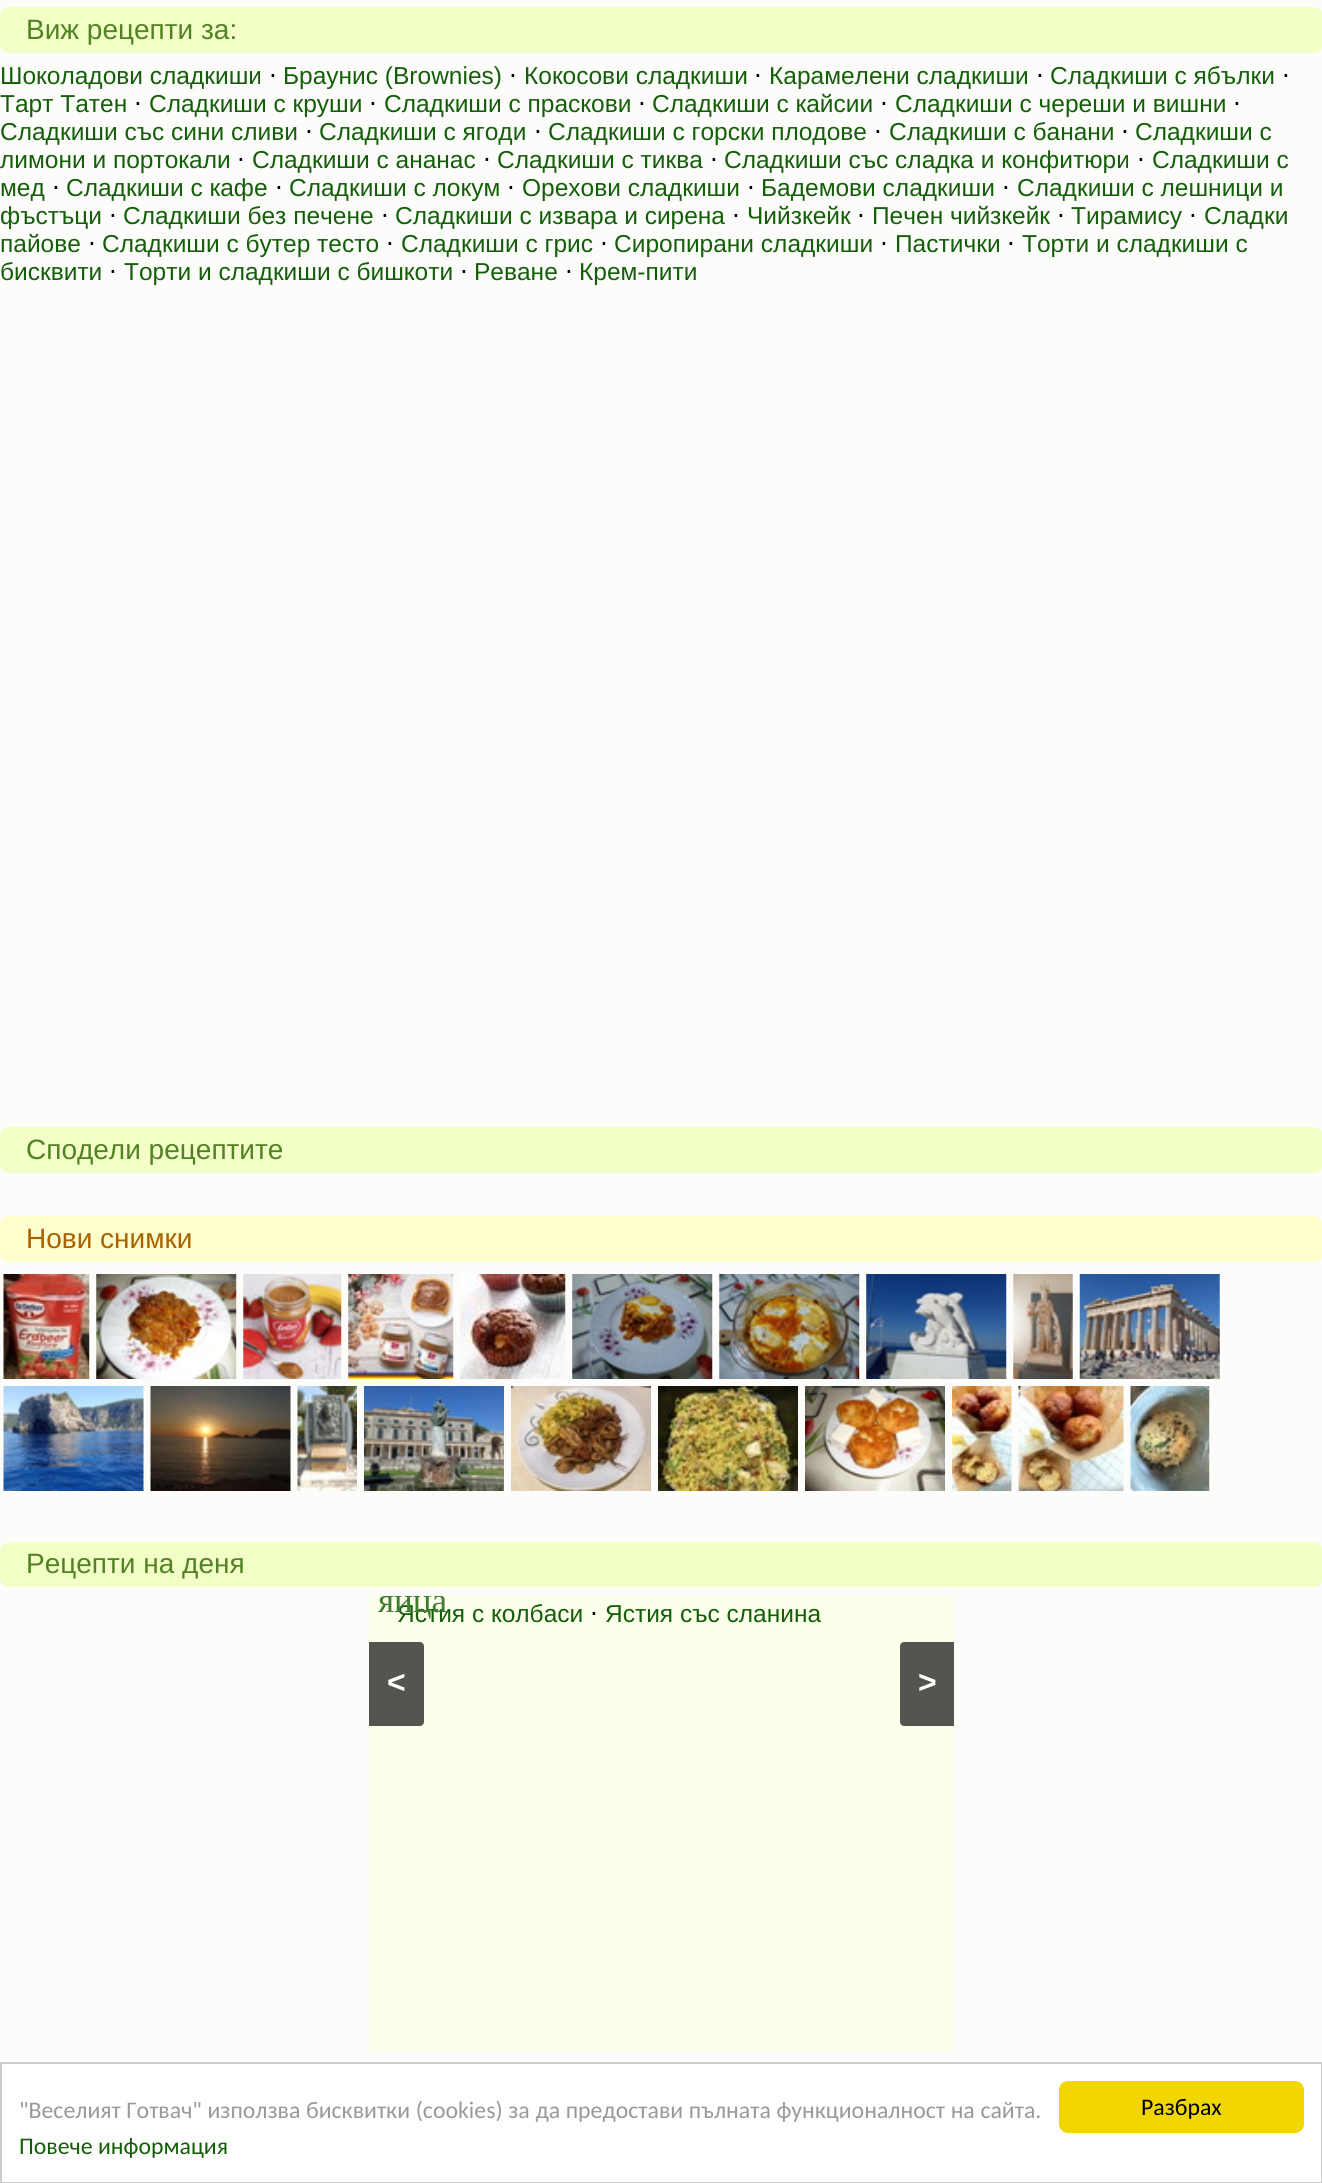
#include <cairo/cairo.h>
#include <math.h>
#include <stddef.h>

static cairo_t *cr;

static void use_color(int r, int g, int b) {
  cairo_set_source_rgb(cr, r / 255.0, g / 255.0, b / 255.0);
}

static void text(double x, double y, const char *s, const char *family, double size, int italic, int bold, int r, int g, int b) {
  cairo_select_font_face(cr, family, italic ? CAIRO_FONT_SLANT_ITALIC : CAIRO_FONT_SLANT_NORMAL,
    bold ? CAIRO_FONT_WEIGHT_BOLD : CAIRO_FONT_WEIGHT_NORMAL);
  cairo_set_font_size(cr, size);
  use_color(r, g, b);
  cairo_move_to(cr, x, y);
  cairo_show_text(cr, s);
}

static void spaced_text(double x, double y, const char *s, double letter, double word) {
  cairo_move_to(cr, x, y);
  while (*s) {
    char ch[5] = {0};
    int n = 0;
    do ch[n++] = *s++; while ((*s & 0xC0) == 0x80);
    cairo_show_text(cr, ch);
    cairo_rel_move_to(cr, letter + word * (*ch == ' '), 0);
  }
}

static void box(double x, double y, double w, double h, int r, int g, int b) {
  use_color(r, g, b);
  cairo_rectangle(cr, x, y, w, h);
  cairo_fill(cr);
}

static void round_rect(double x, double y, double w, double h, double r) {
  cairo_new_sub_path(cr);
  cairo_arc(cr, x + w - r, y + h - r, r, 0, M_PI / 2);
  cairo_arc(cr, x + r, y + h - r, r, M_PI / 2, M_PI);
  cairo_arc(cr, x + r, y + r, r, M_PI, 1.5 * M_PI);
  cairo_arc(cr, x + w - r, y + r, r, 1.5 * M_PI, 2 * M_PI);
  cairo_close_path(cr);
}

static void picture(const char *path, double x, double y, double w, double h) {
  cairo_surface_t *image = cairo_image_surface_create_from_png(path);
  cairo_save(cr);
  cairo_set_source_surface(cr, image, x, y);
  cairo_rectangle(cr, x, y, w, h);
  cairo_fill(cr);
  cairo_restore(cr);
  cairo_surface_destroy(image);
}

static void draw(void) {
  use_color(252, 253, 251);
  cairo_paint(cr);
  use_color(242, 255, 199);
  round_rect(0, 7, 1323, 46, 9);
  cairo_fill(cr);
  round_rect(0, 1127, 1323, 46, 9);
  cairo_fill(cr);
  use_color(255, 254, 204);
  round_rect(0, 1216, 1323, 46, 9);
  cairo_fill(cr);
  picture("img_01.png", 3, 1274, 87, 105);
  picture("img_02.png", 96, 1274, 141, 105);
  picture("img_03.png", 243, 1274, 99, 105);
  picture("img_04.png", 348, 1274, 106, 105);
  picture("img_05.png", 460, 1274, 106, 105);
  picture("img_06.png", 572, 1274, 141, 105);
  picture("img_07.png", 719, 1274, 141, 105);
  picture("img_08.png", 866, 1274, 141, 105);
  picture("img_09.png", 1013, 1274, 60, 105);
  picture("img_10.png", 1079, 1274, 141, 105);
  picture("img_11.png", 3, 1386, 141, 105);
  picture("img_12.png", 150, 1386, 141, 105);
  picture("img_13.png", 297, 1386, 60, 105);
  picture("img_14.png", 364, 1386, 140, 105);
  picture("img_15.png", 511, 1386, 140, 105);
  picture("img_16.png", 658, 1386, 140, 105);
  picture("img_17.png", 805, 1386, 140, 105);
  picture("img_18.png", 952, 1386, 60, 105);
  picture("img_19.png", 1018, 1386, 106, 105);
  picture("img_20.png", 1130, 1386, 80, 105);
  use_color(242, 255, 199);
  round_rect(0, 1542, 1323, 45, 9);
  cairo_fill(cr);
  box(369, 1596, 585, 455, 252, 255, 234);
  use_color(84, 85, 80);
  cairo_new_path(cr);
  cairo_move_to(cr, 369, 1642);
  cairo_line_to(cr, 420, 1642);
  cairo_curve_to(cr, 422, 1642, 424, 1644, 424, 1646);
  cairo_line_to(cr, 424, 1722);
  cairo_curve_to(cr, 424, 1724, 422, 1726, 420, 1726);
  cairo_line_to(cr, 369, 1726);
  cairo_close_path(cr);
  cairo_fill(cr);
  cairo_new_path(cr);
  cairo_move_to(cr, 904, 1642);
  cairo_line_to(cr, 954, 1642);
  cairo_line_to(cr, 954, 1726);
  cairo_line_to(cr, 904, 1726);
  cairo_curve_to(cr, 902, 1726, 900, 1724, 900, 1722);
  cairo_line_to(cr, 900, 1646);
  cairo_curve_to(cr, 900, 1644, 902, 1642, 904, 1642);
  cairo_close_path(cr);
  cairo_fill(cr);
  use_color(255, 255, 255);
  cairo_rectangle(cr, 1, 2063, 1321, 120);
  cairo_fill_preserve(cr);
  use_color(204, 204, 204);
  cairo_stroke(cr);
  use_color(241, 214, 0);
  round_rect(1059, 2081, 245, 52, 9);
  cairo_fill(cr);
  text(26, 39, "Виж рецепти за:", "Liberation Sans", 28, 0, 0, 83, 130, 36);
  text(0, 84, "Шоколадови сладкиши", "Liberation Sans", 24.5, 0, 0, 21, 94, 9);
  text(269, 84, "⋅", "DejaVu Sans", 24.5, 0, 0, 0, 0, 0);
  text(283, 84, "Браунис (Brownies)", "Liberation Sans", 24.5, 0, 0, 21, 94, 9);
  text(509, 84, "⋅", "DejaVu Sans", 24.5, 0, 0, 0, 0, 0);
  text(524, 84, "Кокосови сладкиши", "Liberation Sans", 24.5, 0, 0, 21, 94, 9);
  text(754, 84, "⋅", "DejaVu Sans", 24.5, 0, 0, 0, 0, 0);
  text(769, 84, "Карамелени сладкиши", "Liberation Sans", 24.5, 0, 0, 21, 94, 9);
  text(1036, 84, "⋅", "DejaVu Sans", 24.5, 0, 0, 0, 0, 0);
  text(1050, 84, "Сладкиши с ябълки", "Liberation Sans", 24.5, 0, 0, 21, 94, 9);
  text(1282, 84, "⋅", "DejaVu Sans", 24.5, 0, 0, 0, 0, 0);
  text(0, 112, "Тарт Татен", "Liberation Sans", 24.5, 0, 0, 21, 94, 9);
  text(134, 112, "⋅", "DejaVu Sans", 24.5, 0, 0, 0, 0, 0);
  text(149, 112, "Сладкиши с круши", "Liberation Sans", 24.5, 0, 0, 21, 94, 9);
  text(369, 112, "⋅", "DejaVu Sans", 24.5, 0, 0, 0, 0, 0);
  text(384, 112, "Сладкиши с праскови", "Liberation Sans", 24.5, 0, 0, 21, 94, 9);
  text(638, 112, "⋅", "DejaVu Sans", 24.5, 0, 0, 0, 0, 0);
  text(652, 112, "Сладкиши с кайсии", "Liberation Sans", 24.5, 0, 0, 21, 94, 9);
  text(880, 112, "⋅", "DejaVu Sans", 24.5, 0, 0, 0, 0, 0);
  text(895, 112, "Сладкиши с череши и вишни", "Liberation Sans", 24.5, 0, 0, 21, 94, 9);
  text(1233, 112, "⋅", "DejaVu Sans", 24.5, 0, 0, 0, 0, 0);
  text(0, 140, "Сладкиши със сини сливи", "Liberation Sans", 24.5, 0, 0, 21, 94, 9);
  text(305, 140, "⋅", "DejaVu Sans", 24.5, 0, 0, 0, 0, 0);
  text(319, 140, "Сладкиши с ягоди", "Liberation Sans", 24.5, 0, 0, 21, 94, 9);
  text(534, 140, "⋅", "DejaVu Sans", 24.5, 0, 0, 0, 0, 0);
  text(548, 140, "Сладкиши с горски плодове", "Liberation Sans", 24.5, 0, 0, 21, 94, 9);
  text(874, 140, "⋅", "DejaVu Sans", 24.5, 0, 0, 0, 0, 0);
  text(889, 140, "Сладкиши с банани", "Liberation Sans", 24.5, 0, 0, 21, 94, 9);
  text(1121, 140, "⋅", "DejaVu Sans", 24.5, 0, 0, 0, 0, 0);
  text(1135, 140, "Сладкиши с", "Liberation Sans", 24.5, 0, 0, 21, 94, 9);
  text(0, 168, "лимони и портокали", "Liberation Sans", 24.5, 0, 0, 21, 94, 9);
  text(237, 168, "⋅", "DejaVu Sans", 24.5, 0, 0, 0, 0, 0);
  text(252, 168, "Сладкиши с ананас", "Liberation Sans", 24.5, 0, 0, 21, 94, 9);
  text(483, 168, "⋅", "DejaVu Sans", 24.5, 0, 0, 0, 0, 0);
  text(497, 168, "Сладкиши с тиква", "Liberation Sans", 24.5, 0, 0, 21, 94, 9);
  text(710, 168, "⋅", "DejaVu Sans", 24.5, 0, 0, 0, 0, 0);
  text(724, 168, "Сладкиши със сладка и конфитюри", "Liberation Sans", 24.5, 0, 0, 21, 94, 9);
  text(1137, 168, "⋅", "DejaVu Sans", 24.5, 0, 0, 0, 0, 0);
  text(1152, 168, "Сладкиши с", "Liberation Sans", 24.5, 0, 0, 21, 94, 9);
  text(0, 196, "мед", "Liberation Sans", 24.5, 0, 0, 21, 94, 9);
  text(52, 196, "⋅", "DejaVu Sans", 24.5, 0, 0, 0, 0, 0);
  text(66, 196, "Сладкиши с кафе", "Liberation Sans", 24.5, 0, 0, 21, 94, 9);
  text(275, 196, "⋅", "DejaVu Sans", 24.5, 0, 0, 0, 0, 0);
  text(289, 196, "Сладкиши с локум", "Liberation Sans", 24.5, 0, 0, 21, 94, 9);
  text(507, 196, "⋅", "DejaVu Sans", 24.5, 0, 0, 0, 0, 0);
  text(522, 196, "Орехови сладкиши", "Liberation Sans", 24.5, 0, 0, 21, 94, 9);
  text(747, 196, "⋅", "DejaVu Sans", 24.5, 0, 0, 0, 0, 0);
  text(761, 196, "Бадемови сладкиши", "Liberation Sans", 24.5, 0, 0, 21, 94, 9);
  text(1002, 196, "⋅", "DejaVu Sans", 24.5, 0, 0, 0, 0, 0);
  text(1017, 196, "Сладкиши с лешници и", "Liberation Sans", 24.5, 0, 0, 21, 94, 9);
  text(0, 224, "фъстъци", "Liberation Sans", 24.5, 0, 0, 21, 94, 9);
  text(109, 224, "⋅", "DejaVu Sans", 24.5, 0, 0, 0, 0, 0);
  text(123, 224, "Сладкиши без печене", "Liberation Sans", 24.5, 0, 0, 21, 94, 9);
  text(381, 224, "⋅", "DejaVu Sans", 24.5, 0, 0, 0, 0, 0);
  text(395, 224, "Сладкиши с извара и сирена", "Liberation Sans", 24.5, 0, 0, 21, 94, 9);
  text(732, 224, "⋅", "DejaVu Sans", 24.5, 0, 0, 0, 0, 0);
  text(747, 224, "Чийзкейк", "Liberation Sans", 24.5, 0, 0, 21, 94, 9);
  text(857, 224, "⋅", "DejaVu Sans", 24.5, 0, 0, 0, 0, 0);
  text(872, 224, "Печен чийзкейк", "Liberation Sans", 24.5, 0, 0, 21, 94, 9);
  text(1057, 224, "⋅", "DejaVu Sans", 24.5, 0, 0, 0, 0, 0);
  text(1071, 224, "Тирамису", "Liberation Sans", 24.5, 0, 0, 21, 94, 9);
  text(1189, 224, "⋅", "DejaVu Sans", 24.5, 0, 0, 0, 0, 0);
  text(1204, 224, "Сладки", "Liberation Sans", 24.5, 0, 0, 21, 94, 9);
  text(0, 252, "пайове", "Liberation Sans", 24.5, 0, 0, 21, 94, 9);
  text(88, 252, "⋅", "DejaVu Sans", 24.5, 0, 0, 0, 0, 0);
  text(102, 252, "Сладкиши с бутер тесто", "Liberation Sans", 24.5, 0, 0, 21, 94, 9);
  text(386, 252, "⋅", "DejaVu Sans", 24.5, 0, 0, 0, 0, 0);
  text(401, 252, "Сладкиши с грис", "Liberation Sans", 24.5, 0, 0, 21, 94, 9);
  text(600, 252, "⋅", "DejaVu Sans", 24.5, 0, 0, 0, 0, 0);
  text(614, 252, "Сиропирани сладкиши", "Liberation Sans", 24.5, 0, 0, 21, 94, 9);
  text(880, 252, "⋅", "DejaVu Sans", 24.5, 0, 0, 0, 0, 0);
  text(895, 252, "Пастички", "Liberation Sans", 24.5, 0, 0, 21, 94, 9);
  text(1007, 252, "⋅", "DejaVu Sans", 24.5, 0, 0, 0, 0, 0);
  text(1022, 252, "Торти и сладкиши с", "Liberation Sans", 24.5, 0, 0, 21, 94, 9);
  text(0, 280, "бисквити", "Liberation Sans", 24.5, 0, 0, 21, 94, 9);
  text(109, 280, "⋅", "DejaVu Sans", 24.5, 0, 0, 0, 0, 0);
  text(124, 280, "Торти и сладкиши с бишкоти", "Liberation Sans", 24.5, 0, 0, 21, 94, 9);
  text(460, 280, "⋅", "DejaVu Sans", 24.5, 0, 0, 0, 0, 0);
  text(474, 280, "Реване", "Liberation Sans", 24.5, 0, 0, 21, 94, 9);
  text(565, 280, "⋅", "DejaVu Sans", 24.5, 0, 0, 0, 0, 0);
  text(579, 280, "Крем-пити", "Liberation Sans", 24.5, 0, 0, 21, 94, 9);
  text(26, 1159, "Сподели рецептите", "Liberation Sans", 28, 0, 0, 83, 130, 36);
  text(26, 1248, "Нови снимки", "Liberation Sans", 28, 0, 0, 169, 98, 1);
  text(26, 1573, "Рецепти на деня", "Liberation Sans", 28, 0, 0, 83, 130, 36);
  text(397, 1622, "Ястия с колбаси", "Liberation Sans", 24.5, 0, 0, 21, 94, 9);
  cairo_save(cr);
  cairo_rectangle(cr, 369, 1596, 585, 455);
  cairo_clip(cr);
  text(378, 1612, "яйца", "Liberation Serif", 35, 0, 0, 63, 124, 50);
  cairo_restore(cr);
  text(590, 1622, "⋅", "DejaVu Sans", 24.5, 0, 0, 0, 0, 0);
  text(605, 1622, "Ястия със сланина", "Liberation Sans", 24.5, 0, 0, 21, 94, 9);
  text(387, 1693, "<", "Liberation Sans", 32, 0, 1, 254, 255, 251);
  text(918, 1693, ">", "Liberation Sans", 32, 0, 1, 254, 255, 251);
  cairo_select_font_face(cr, "Carlito", CAIRO_FONT_SLANT_NORMAL, CAIRO_FONT_WEIGHT_NORMAL);
  cairo_set_font_size(cr, 23.8);
  use_color(153, 153, 153);
  spaced_text(19, 2118, "\"Веселият Готвач\" използва бисквитки (cookies) за да предостави пълната функционалност на сайта.", 0, 0.25);
  text(19, 2154, "Повече информация", "Carlito", 23.8, 0, 0, 21, 94, 9);
  text(1141, 2115, "Разбрах", "Carlito", 23.8, 0, 0, 0, 0, 0);
}

int main(void) {
  cairo_surface_t *surface = cairo_image_surface_create(CAIRO_FORMAT_RGB24, 1322, 2183);
  cr = cairo_create(surface);
  cairo_font_options_t *options = cairo_font_options_create();
  cairo_font_options_set_hint_metrics(options, CAIRO_HINT_METRICS_OFF);
  cairo_font_options_set_hint_style(options, CAIRO_HINT_STYLE_NONE);
  cairo_set_font_options(cr, options);
  cairo_set_miter_limit(cr, 4);
  draw();
  cairo_surface_write_to_png(surface, "out.png");
  cairo_font_options_destroy(options);
  cairo_destroy(cr);
  cairo_surface_destroy(surface);
  return 0;
}
